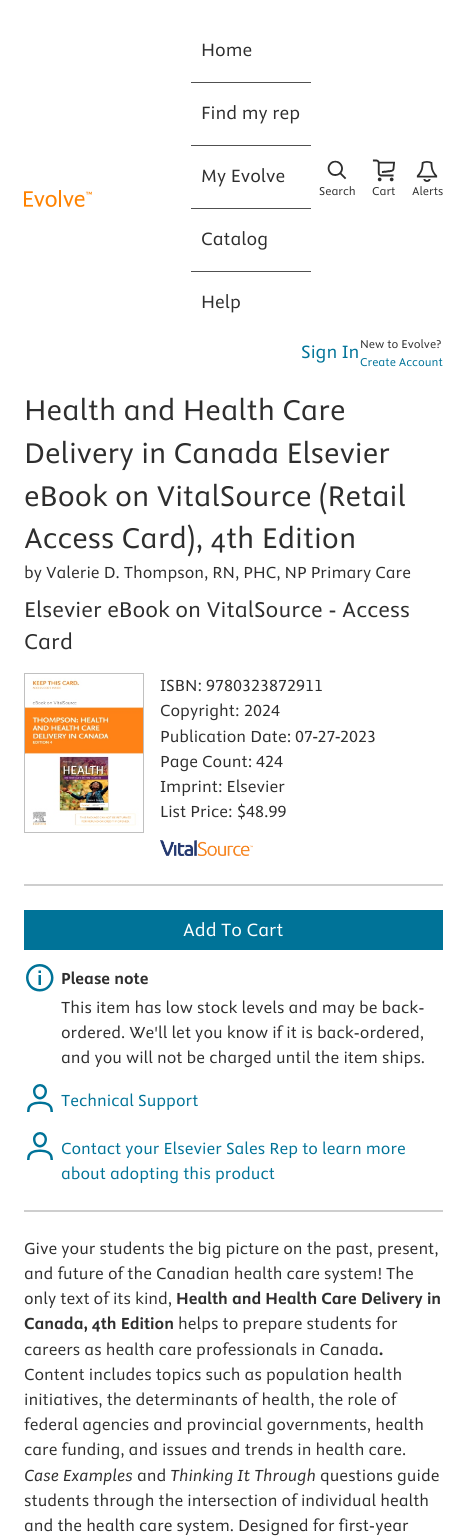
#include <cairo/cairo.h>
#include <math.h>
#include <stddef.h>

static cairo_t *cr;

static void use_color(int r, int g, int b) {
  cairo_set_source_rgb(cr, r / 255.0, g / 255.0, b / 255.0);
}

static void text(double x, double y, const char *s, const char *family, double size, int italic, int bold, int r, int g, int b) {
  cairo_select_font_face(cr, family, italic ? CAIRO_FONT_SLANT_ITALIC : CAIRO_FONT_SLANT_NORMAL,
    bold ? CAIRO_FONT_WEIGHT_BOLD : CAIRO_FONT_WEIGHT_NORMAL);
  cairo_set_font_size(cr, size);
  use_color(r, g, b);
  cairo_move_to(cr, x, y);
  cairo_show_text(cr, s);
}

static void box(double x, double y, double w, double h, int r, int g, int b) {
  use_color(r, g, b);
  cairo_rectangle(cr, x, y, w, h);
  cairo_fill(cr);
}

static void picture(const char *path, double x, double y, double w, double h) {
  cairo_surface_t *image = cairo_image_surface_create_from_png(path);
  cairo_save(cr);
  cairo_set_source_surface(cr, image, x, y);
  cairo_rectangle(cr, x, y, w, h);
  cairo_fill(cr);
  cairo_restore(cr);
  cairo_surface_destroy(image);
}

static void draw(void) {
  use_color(255, 255, 255);
  cairo_paint(cr);
  picture("img_01.png", 24, 190, 68, 17);
  box(191, 82, 120, 1, 80, 80, 80);
  box(191, 145, 120, 1, 80, 80, 80);
  box(191, 208, 120, 1, 80, 80, 80);
  box(191, 271, 120, 1, 80, 80, 80);
  picture("img_02.png", 327, 160, 20, 20);
  picture("img_03.png", 372, 159, 23, 23);
  picture("img_04.png", 416, 161, 22, 21);
  cairo_rectangle(cr, 24.5, 673.5, 119, 159);
  use_color(192, 192, 192);
  cairo_set_line_width(cr, 1);
  cairo_stroke(cr);
  picture("img_05.png", 25, 678, 118, 148);
  picture("img_06.png", 160, 840, 93, 16);
  box(24, 884, 419, 2, 206, 206, 206);
  box(24, 1210, 419, 2, 206, 206, 206);
  box(24, 910, 419, 40, 0, 115, 152);
  picture("img_07.png", 26, 964, 28, 28);
  picture("img_08.png", 27, 1084, 26, 28);
  picture("img_08.png", 27, 1132, 26, 28);
  text(201, 56, "Home", "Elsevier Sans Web", 20, 0, 0, 46, 46, 46);
  text(201, 119, "Find my rep", "Elsevier Sans Web", 20, 0, 0, 46, 46, 46);
  text(201, 182, "My Evolve", "Elsevier Sans Web", 20, 0, 0, 46, 46, 46);
  text(201, 245, "Catalog", "Elsevier Sans Web", 20, 0, 0, 46, 46, 46);
  text(201, 308, "Help", "Elsevier Sans Web", 20, 0, 0, 46, 46, 46);
  text(319, 195, "Search", "Elsevier Sans Web", 12.75, 0, 0, 46, 46, 46);
  text(372, 195, "Cart", "Elsevier Sans Web", 12.75, 0, 0, 46, 46, 46);
  text(412, 195, "Alerts", "Elsevier Sans Web", 12.75, 0, 0, 46, 46, 46);
  text(301, 358, "Sign In", "Elsevier Sans Web", 20, 0, 0, 0, 115, 152);
  text(360, 348, "New to Evolve?", "Elsevier Sans Web", 12.75, 0, 0, 46, 46, 46);
  text(360, 366, "Create Account", "Elsevier Sans Web", 12.75, 0, 0, 0, 115, 152);
  text(24, 420, "Health and Health Care", "Elsevier Sans Web", 32, 0, 0, 46, 46, 46);
  text(24, 463, "Delivery in Canada Elsevier", "Elsevier Sans Web", 32, 0, 0, 46, 46, 46);
  text(24, 506, "eBook on VitalSource (Retail", "Elsevier Sans Web", 32, 0, 0, 46, 46, 46);
  text(24, 548, "Access Card), 4th Edition", "Elsevier Sans Web", 32, 0, 0, 46, 46, 46);
  text(24, 578, "by Valerie D. Thompson, RN, PHC, NP Primary Care", "Elsevier Sans Web", 18, 0, 0, 46, 46, 46);
  text(24, 617, "Elsevier eBook on VitalSource - Access", "Elsevier Sans Web", 24, 0, 0, 46, 46, 46);
  text(24, 649, "Card", "Elsevier Sans Web", 24, 0, 0, 46, 46, 46);
  text(160, 691, "ISBN:", "Elsevier Sans Web", 18, 0, 0, 46, 46, 46);
  text(206, 691, "9780323872911", "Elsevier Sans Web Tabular", 18, 0, 0, 46, 46, 46);
  text(160, 716, "Copyright:", "Elsevier Sans Web", 18, 0, 0, 46, 46, 46);
  text(244, 716, "2024", "Elsevier Sans Web Tabular", 18, 0, 0, 46, 46, 46);
  text(160, 742, "Publication Date:", "Elsevier Sans Web", 18, 0, 0, 46, 46, 46);
  text(295, 742, "07-27-2023", "Elsevier Sans Web Tabular", 18, 0, 0, 46, 46, 46);
  text(160, 767, "Page Count:", "Elsevier Sans Web", 18, 0, 0, 46, 46, 46);
  text(256, 767, "424", "Elsevier Sans Web Tabular", 18, 0, 0, 46, 46, 46);
  text(160, 792, "Imprint: Elsevier", "Elsevier Sans Web", 18, 0, 0, 46, 46, 46);
  text(160, 817, "List Price:", "Elsevier Sans Web", 18, 0, 0, 46, 46, 46);
  text(237, 817, "$48.99", "Elsevier Sans Web Tabular", 18, 0, 0, 46, 46, 46);
  text(183, 936, "Add To Cart", "Elsevier Sans Web", 20, 0, 0, 255, 255, 255);
  text(61, 984, "Please note", "Elsevier Sans Web", 18, 0, 1, 46, 46, 46);
  text(61, 1013, "This item has low stock levels and may be back-", "Elsevier Sans Web", 18, 0, 0, 46, 46, 46);
  text(61, 1038, "ordered. We'll let you know if it is back-ordered,", "Elsevier Sans Web", 18, 0, 0, 46, 46, 46);
  text(61, 1063, "and you will not be charged until the item ships.", "Elsevier Sans Web", 18, 0, 0, 46, 46, 46);
  text(61, 1106, "Technical Support", "Elsevier Sans Web", 18, 0, 0, 0, 115, 152);
  text(61, 1154, "Contact your Elsevier Sales Rep to learn more", "Elsevier Sans Web", 18, 0, 0, 0, 115, 152);
  text(61, 1179, "about adopting this product", "Elsevier Sans Web", 18, 0, 0, 0, 115, 152);
  text(24, 1254, "Give your students the big picture on the past, present,", "Elsevier Sans Web", 18, 0, 0, 46, 46, 46);
  text(24, 1279, "and future of the Canadian health care system! The", "Elsevier Sans Web", 18, 0, 0, 46, 46, 46);
  text(24, 1304, "only text of its kind,", "Elsevier Sans Web", 18, 0, 0, 46, 46, 46);
  text(176, 1304, "Health and Health Care Delivery in", "Elsevier Sans Web", 18, 0, 1, 46, 46, 46);
  text(24, 1329, "Canada, 4th Edition", "Elsevier Sans Web", 18, 0, 1, 46, 46, 46);
  text(178, 1329, "helps to prepare students for", "Elsevier Sans Web", 18, 0, 0, 46, 46, 46);
  text(24, 1355, "careers as health care professionals in Canada", "Elsevier Sans Web", 18, 0, 0, 46, 46, 46);
  text(379, 1355, ".", "Elsevier Sans Web", 18, 0, 1, 46, 46, 46);
  text(24, 1380, "Content includes topics such as population health", "Elsevier Sans Web", 18, 0, 0, 46, 46, 46);
  text(24, 1405, "initiatives, the determinants of health, the role of", "Elsevier Sans Web", 18, 0, 0, 46, 46, 46);
  text(24, 1430, "federal agencies and provincial governments, health", "Elsevier Sans Web", 18, 0, 0, 46, 46, 46);
  text(24, 1455, "care funding, and issues and trends in health care.", "Elsevier Sans Web", 18, 0, 0, 46, 46, 46);
  text(24, 1481, "Case Examples", "Elsevier Sans Web", 18, 1, 0, 46, 46, 46);
  text(137, 1481, "and", "Elsevier Sans Web", 18, 0, 0, 46, 46, 46);
  text(170, 1481, "Thinking It Through", "Elsevier Sans Web", 18, 1, 0, 46, 46, 46);
  text(320, 1481, "questions guide", "Elsevier Sans Web", 18, 0, 0, 46, 46, 46);
  text(24, 1506, "students through the intersection of individual health", "Elsevier Sans Web", 18, 0, 0, 46, 46, 46);
  text(24, 1531, "and the health care system. Designed for first-year", "Elsevier Sans Web", 18, 0, 0, 46, 46, 46);
}

int main(void) {
  cairo_surface_t *surface = cairo_image_surface_create(CAIRO_FORMAT_RGB24, 467, 1537);
  cr = cairo_create(surface);
  cairo_font_options_t *options = cairo_font_options_create();
  cairo_font_options_set_hint_metrics(options, CAIRO_HINT_METRICS_OFF);
  cairo_font_options_set_hint_style(options, CAIRO_HINT_STYLE_NONE);
  cairo_set_font_options(cr, options);
  cairo_set_miter_limit(cr, 4);
  draw();
  cairo_surface_write_to_png(surface, "out.png");
  cairo_font_options_destroy(options);
  cairo_destroy(cr);
  cairo_surface_destroy(surface);
  return 0;
}
